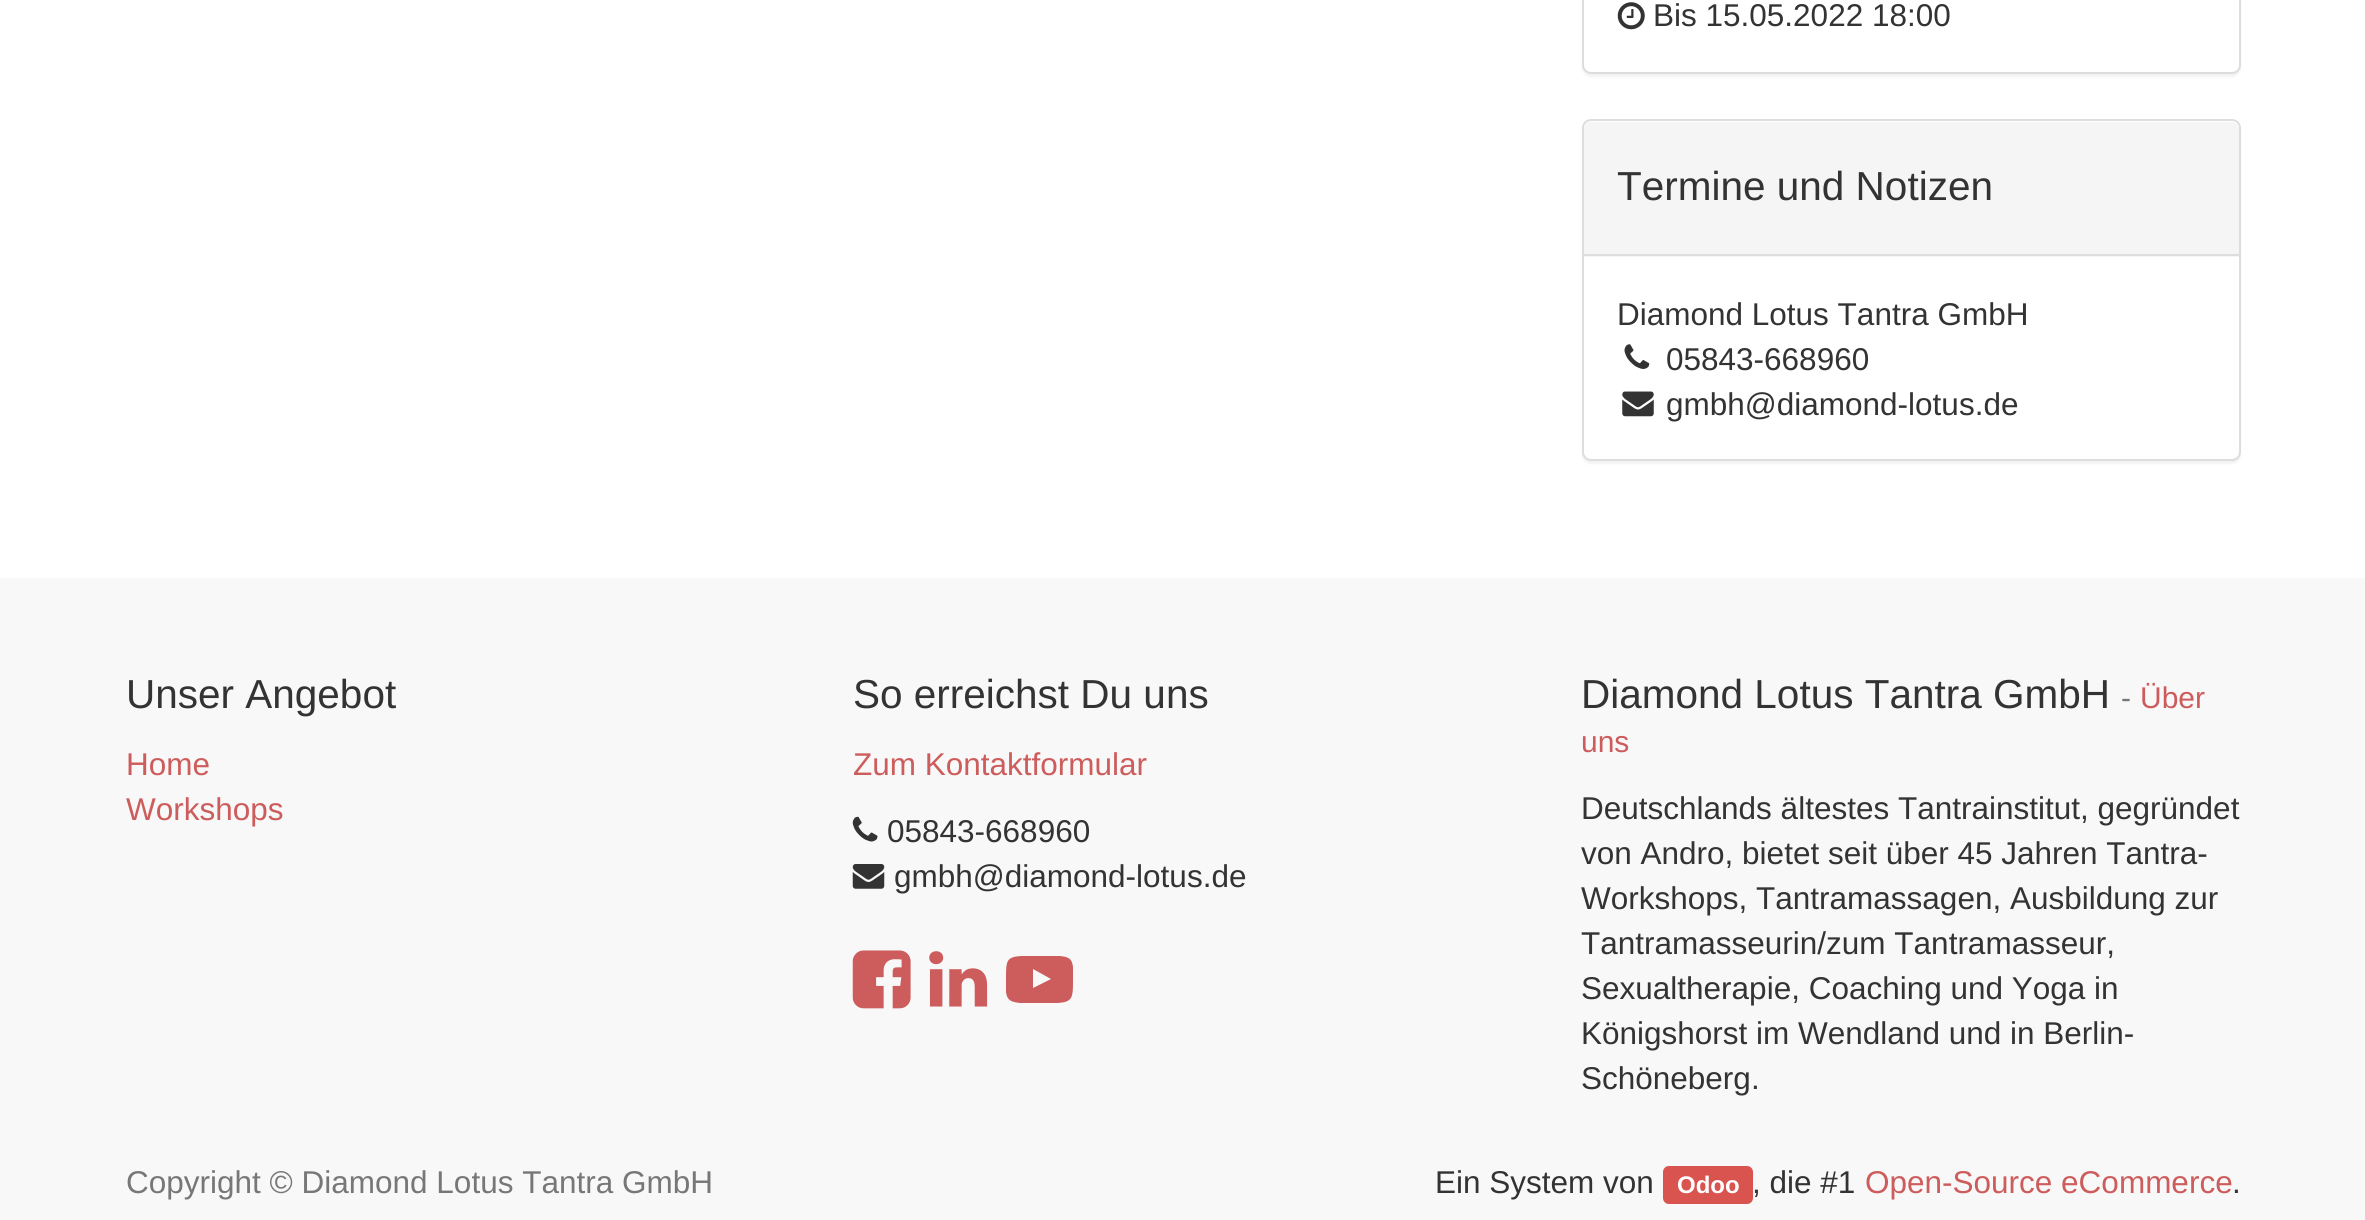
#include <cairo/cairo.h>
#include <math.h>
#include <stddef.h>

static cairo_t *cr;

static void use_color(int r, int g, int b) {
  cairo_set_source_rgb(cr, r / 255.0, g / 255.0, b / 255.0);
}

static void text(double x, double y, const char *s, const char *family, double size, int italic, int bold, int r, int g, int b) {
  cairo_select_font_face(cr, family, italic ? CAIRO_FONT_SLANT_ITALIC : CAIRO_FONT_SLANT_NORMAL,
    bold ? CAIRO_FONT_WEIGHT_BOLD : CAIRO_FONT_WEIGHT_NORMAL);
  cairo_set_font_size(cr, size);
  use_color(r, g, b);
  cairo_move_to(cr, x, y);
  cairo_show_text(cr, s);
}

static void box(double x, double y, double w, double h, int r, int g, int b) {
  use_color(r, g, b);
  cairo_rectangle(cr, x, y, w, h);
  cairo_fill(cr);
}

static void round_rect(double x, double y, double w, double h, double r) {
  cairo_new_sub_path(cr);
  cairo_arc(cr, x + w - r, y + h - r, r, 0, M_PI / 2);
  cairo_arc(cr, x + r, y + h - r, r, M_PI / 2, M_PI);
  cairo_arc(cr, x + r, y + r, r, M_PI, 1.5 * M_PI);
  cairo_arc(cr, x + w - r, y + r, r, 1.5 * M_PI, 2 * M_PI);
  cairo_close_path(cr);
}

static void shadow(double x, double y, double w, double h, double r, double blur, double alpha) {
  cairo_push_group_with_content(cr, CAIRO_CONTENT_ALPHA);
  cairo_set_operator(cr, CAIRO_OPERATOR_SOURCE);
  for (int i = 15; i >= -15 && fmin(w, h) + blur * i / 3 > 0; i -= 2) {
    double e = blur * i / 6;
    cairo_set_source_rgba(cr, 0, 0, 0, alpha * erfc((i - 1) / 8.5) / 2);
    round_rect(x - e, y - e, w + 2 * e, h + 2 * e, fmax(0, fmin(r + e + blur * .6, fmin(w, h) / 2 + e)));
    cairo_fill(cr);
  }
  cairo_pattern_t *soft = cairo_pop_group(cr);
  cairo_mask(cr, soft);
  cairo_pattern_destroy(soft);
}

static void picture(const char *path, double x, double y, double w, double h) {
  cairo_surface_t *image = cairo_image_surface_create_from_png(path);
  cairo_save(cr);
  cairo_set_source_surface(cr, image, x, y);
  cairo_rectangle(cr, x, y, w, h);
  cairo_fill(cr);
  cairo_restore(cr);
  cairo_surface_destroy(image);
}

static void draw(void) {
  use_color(255, 255, 255);
  cairo_paint(cr);
  use_color(0, 0, 0);
  shadow(1582, -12, 659, 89, 9, 1, 0.05);
  use_color(255, 255, 255);
  round_rect(1583, -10, 657, 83, 8);
  cairo_fill_preserve(cr);
  use_color(221, 221, 221);
  cairo_stroke(cr);
  picture("img_01.png", 1617, 2, 28, 28);
  use_color(0, 0, 0);
  shadow(1582, 122, 659, 342, 9, 1, 0.05);
  use_color(255, 255, 255);
  round_rect(1583, 120, 657, 340, 8);
  cairo_fill_preserve(cr);
  use_color(221, 221, 221);
  cairo_stroke(cr);
  use_color(245, 245, 245);
  cairo_new_path(cr);
  cairo_move_to(cr, 1591, 122);
  cairo_line_to(cr, 2232, 122);
  cairo_curve_to(cr, 2236, 122, 2239, 125, 2239, 129);
  cairo_line_to(cr, 2239, 257);
  cairo_line_to(cr, 1584, 257);
  cairo_line_to(cr, 1584, 129);
  cairo_curve_to(cr, 1584, 125, 1587, 122, 1591, 122);
  cairo_close_path(cr);
  cairo_fill(cr);
  box(1584, 254, 655, 2, 221, 221, 221);
  picture("img_02.png", 1624, 344, 26, 25);
  picture("img_03.png", 1622, 391, 32, 26);
  box(0, 578, 2365, 642, 248, 248, 248);
  picture("img_04.png", 852, 816, 26, 26);
  picture("img_05.png", 852, 864, 33, 25);
  picture("img_06.png", 852, 950, 59, 59);
  picture("img_07.png", 929, 951, 59, 56);
  use_color(205, 92, 92);
  cairo_new_path(cr);
  cairo_move_to(cr, 1033, 988);
  cairo_line_to(cr, 1051, 979);
  cairo_line_to(cr, 1033, 969);
  cairo_close_path(cr);
  cairo_move_to(cr, 1040, 956);
  cairo_line_to(cr, 1060, 956);
  cairo_curve_to(cr, 1068, 957, 1072, 958, 1073, 967);
  cairo_line_to(cr, 1073, 980);
  cairo_curve_to(cr, 1073, 997, 1073, 1002, 1058, 1003);
  cairo_line_to(cr, 1040, 1003);
  cairo_line_to(cr, 1020, 1003);
  cairo_curve_to(cr, 1012, 1002, 1007, 1001, 1006, 992);
  cairo_line_to(cr, 1006, 979);
  cairo_curve_to(cr, 1006, 961, 1006, 957, 1021, 956);
  cairo_close_path(cr);
  cairo_fill(cr);
  use_color(217, 83, 79);
  round_rect(1663, 1166, 90, 38, 6);
  cairo_fill(cr);
  text(1653, 26, "Bis 15.05.2022 18:00", "Liberation Sans", 31.5, 0, 0, 51, 51, 51);
  text(1617, 200, "Termine und Notizen", "Liberation Sans", 40.5, 0, 0, 51, 51, 51);
  text(1617, 325, "Diamond Lotus Tantra GmbH", "Liberation Sans", 31.5, 0, 0, 51, 51, 51);
  text(1666, 370, "05843-668960", "Liberation Sans", 31.5, 0, 0, 51, 51, 51);
  text(1666, 415, "gmbh@diamond-lotus.de", "Liberation Sans", 31.5, 0, 0, 51, 51, 51);
  text(126, 708, "Unser Angebot", "Liberation Sans", 40.5, 0, 0, 51, 51, 51);
  text(126, 775, "Home", "Liberation Sans", 31.5, 0, 0, 205, 92, 92);
  text(126, 820, "Workshops", "Liberation Sans", 31.5, 0, 0, 205, 92, 92);
  text(853, 708, "So erreichst Du uns", "Liberation Sans", 40.5, 0, 0, 51, 51, 51);
  text(853, 775, "Zum Kontaktformular", "Liberation Sans", 31.5, 0, 0, 205, 92, 92);
  text(887, 842, "05843-668960", "Liberation Sans", 31.5, 0, 0, 51, 51, 51);
  text(894, 887, "gmbh@diamond-lotus.de", "Liberation Sans", 31.5, 0, 0, 51, 51, 51);
  text(1581, 708, "Diamond Lotus Tantra GmbH", "Liberation Sans", 40.5, 0, 0, 51, 51, 51);
  text(2121, 708, "-", "Liberation Sans", 30, 0, 0, 119, 119, 119);
  text(2140, 708, "Über", "Liberation Sans", 30, 0, 0, 205, 92, 92);
  text(1581, 752, "uns", "Liberation Sans", 30, 0, 0, 205, 92, 92);
  text(1581, 819, "Deutschlands ältestes Tantrainstitut, gegründet", "Liberation Sans", 31.5, 0, 0, 51, 51, 51);
  text(1581, 864, "von Andro, bietet seit über 45 Jahren Tantra-", "Liberation Sans", 31.5, 0, 0, 51, 51, 51);
  text(1581, 909, "Workshops, Tantramassagen, Ausbildung zur", "Liberation Sans", 31.5, 0, 0, 51, 51, 51);
  text(1581, 954, "Tantramasseurin/zum Tantramasseur,", "Liberation Sans", 31.5, 0, 0, 51, 51, 51);
  text(1581, 999, "Sexualtherapie, Coaching und Yoga in", "Liberation Sans", 31.5, 0, 0, 51, 51, 51);
  text(1581, 1044, "Königshorst im Wendland und in Berlin-", "Liberation Sans", 31.5, 0, 0, 51, 51, 51);
  text(1581, 1089, "Schöneberg.", "Liberation Sans", 31.5, 0, 0, 51, 51, 51);
  text(126, 1193, "Copyright © Diamond Lotus Tantra GmbH", "Liberation Sans", 31.5, 0, 0, 119, 119, 119);
  text(1435, 1193, "Ein System von", "Liberation Sans", 31.5, 0, 0, 51, 51, 51);
  text(1677, 1193, "Odoo", "Liberation Sans", 24, 0, 1, 255, 255, 255);
  text(1752, 1193, ", die #1", "Liberation Sans", 31.5, 0, 0, 51, 51, 51);
  text(1865, 1193, "Open-Source eCommerce", "Liberation Sans", 31.5, 0, 0, 205, 92, 92);
  text(2232, 1193, ".", "Liberation Sans", 31.5, 0, 0, 51, 51, 51);
}

int main(void) {
  cairo_surface_t *surface = cairo_image_surface_create(CAIRO_FORMAT_RGB24, 2365, 1220);
  cr = cairo_create(surface);
  cairo_font_options_t *options = cairo_font_options_create();
  cairo_font_options_set_hint_metrics(options, CAIRO_HINT_METRICS_OFF);
  cairo_font_options_set_hint_style(options, CAIRO_HINT_STYLE_NONE);
  cairo_set_font_options(cr, options);
  cairo_set_miter_limit(cr, 4);
  draw();
  cairo_surface_write_to_png(surface, "out.png");
  cairo_font_options_destroy(options);
  cairo_destroy(cr);
  cairo_surface_destroy(surface);
  return 0;
}
